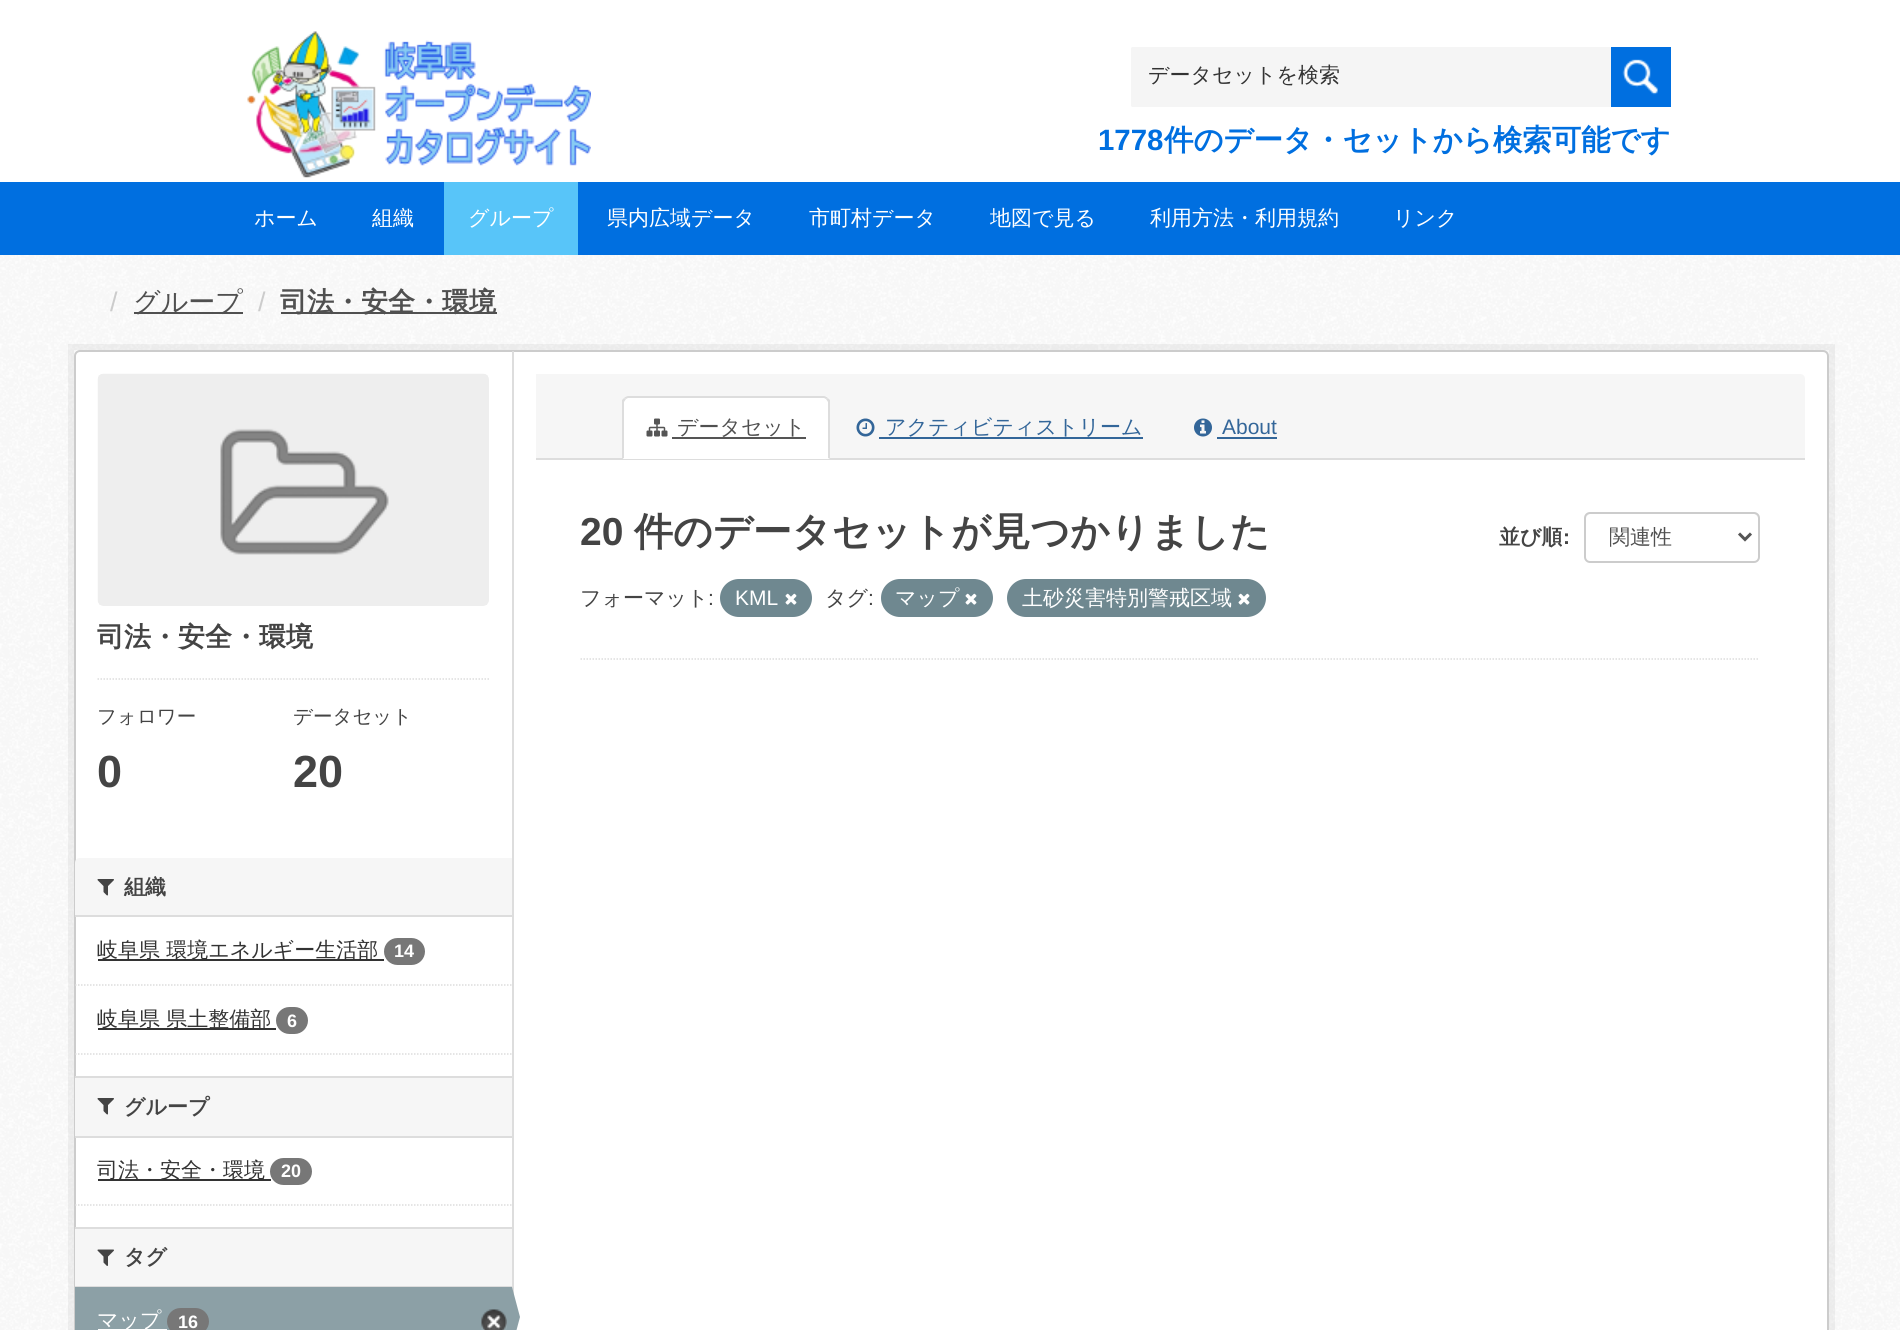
#include <cairo/cairo.h>
#include <math.h>
#include <stddef.h>

static cairo_t *cr;

static void use_color(int r, int g, int b) {
  cairo_set_source_rgb(cr, r / 255.0, g / 255.0, b / 255.0);
}

static void text(double x, double y, const char *s, const char *family, double size, int italic, int bold, int r, int g, int b) {
  cairo_select_font_face(cr, family, italic ? CAIRO_FONT_SLANT_ITALIC : CAIRO_FONT_SLANT_NORMAL,
    bold ? CAIRO_FONT_WEIGHT_BOLD : CAIRO_FONT_WEIGHT_NORMAL);
  cairo_set_font_size(cr, size);
  use_color(r, g, b);
  cairo_move_to(cr, x, y);
  cairo_show_text(cr, s);
}

static void box(double x, double y, double w, double h, int r, int g, int b) {
  use_color(r, g, b);
  cairo_rectangle(cr, x, y, w, h);
  cairo_fill(cr);
}

static void round_rect(double x, double y, double w, double h, double r) {
  cairo_new_sub_path(cr);
  cairo_arc(cr, x + w - r, y + h - r, r, 0, M_PI / 2);
  cairo_arc(cr, x + r, y + h - r, r, M_PI / 2, M_PI);
  cairo_arc(cr, x + r, y + r, r, M_PI, 1.5 * M_PI);
  cairo_arc(cr, x + w - r, y + r, r, 1.5 * M_PI, 2 * M_PI);
  cairo_close_path(cr);
}

static void picture(const char *path, double x, double y, double w, double h) {
  cairo_surface_t *image = cairo_image_surface_create_from_png(path);
  cairo_save(cr);
  cairo_set_source_surface(cr, image, x, y);
  cairo_rectangle(cr, x, y, w, h);
  cairo_fill(cr);
  cairo_restore(cr);
  cairo_surface_destroy(image);
}

static void draw(void) {
  use_color(255, 255, 255);
  cairo_paint(cr);
  picture("img_01.png", 247, 31, 344, 147);
  use_color(245, 245, 245);
  round_rect(1131, 47, 480, 60, 1.5);
  cairo_fill(cr);
  box(1611, 47, 60, 60, 0, 111, 224);
  picture("img_02.png", 1622, 59, 36, 36);
  box(0, 182, 1900, 73, 0, 111, 224);
  box(444, 182, 134, 73, 88, 197, 249);
  picture("img_03.png", 0, 255, 1900, 1075);
  box(134, 312, 109, 2, 80, 80, 80);
  box(281, 312, 216, 2, 80, 80, 80);
  cairo_rectangle(cr, 71, 347, 1761, 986);
  cairo_set_source_rgba(cr, 0, 0, 0, 0.05);
  cairo_set_line_width(cr, 6);
  cairo_stroke(cr);
  use_color(255, 255, 255);
  round_rect(75, 351, 1753, 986, 5);
  cairo_fill_preserve(cr);
  use_color(204, 204, 204);
  cairo_set_line_width(cr, 2);
  cairo_stroke(cr);
  box(512, 351, 2, 944, 221, 221, 221);
  use_color(246, 246, 246);
  cairo_new_path(cr);
  cairo_move_to(cr, 536, 374);
  cairo_line_to(cr, 1800, 374);
  cairo_curve_to(cr, 1803, 374, 1805, 376, 1805, 379);
  cairo_line_to(cr, 1805, 459);
  cairo_line_to(cr, 536, 459);
  cairo_close_path(cr);
  cairo_fill(cr);
  box(536, 458, 1269, 2, 221, 221, 221);
  use_color(255, 255, 255);
  cairo_new_path(cr);
  cairo_move_to(cr, 629, 396);
  cairo_line_to(cr, 824, 396);
  cairo_curve_to(cr, 827.5, 396, 830, 398.5, 830, 402);
  cairo_line_to(cr, 830, 459);
  cairo_line_to(cr, 623, 459);
  cairo_line_to(cr, 623, 402);
  cairo_curve_to(cr, 623, 398.5, 625.5, 396, 629, 396);
  cairo_close_path(cr);
  cairo_fill(cr);
  use_color(221, 221, 221);
  cairo_new_path(cr);
  cairo_move_to(cr, 628, 396);
  cairo_curve_to(cr, 627, 396, 625, 397, 624, 398);
  cairo_line_to(cr, 626, 399);
  cairo_line_to(cr, 628, 398);
  cairo_line_to(cr, 824, 398);
  cairo_line_to(cr, 826, 399);
  cairo_line_to(cr, 828, 398);
  cairo_curve_to(cr, 827, 397, 825, 396, 824, 396);
  cairo_close_path(cr);
  cairo_fill(cr);
  cairo_new_path(cr);
  cairo_move_to(cr, 830, 400);
  cairo_line_to(cr, 830, 459);
  cairo_line_to(cr, 828, 458);
  cairo_line_to(cr, 828, 402);
  cairo_line_to(cr, 826, 399);
  cairo_line_to(cr, 828, 398);
  cairo_close_path(cr);
  cairo_fill(cr);
  cairo_new_path(cr);
  cairo_move_to(cr, 622, 459);
  cairo_line_to(cr, 622, 400);
  cairo_line_to(cr, 624, 398);
  cairo_line_to(cr, 626, 399);
  cairo_line_to(cr, 624, 402);
  cairo_line_to(cr, 624, 458);
  cairo_close_path(cr);
  cairo_fill(cr);
  picture("img_04.png", 646, 418, 22, 19);
  box(672, 437, 134, 2, 85, 85, 85);
  picture("img_05.png", 856, 418, 19, 19);
  box(879, 437, 264, 2, 51, 102, 153);
  picture("img_06.png", 1194, 418, 18, 19);
  box(1217, 437, 60, 2, 51, 102, 153);
  cairo_new_path(cr);
  cairo_move_to(cr, 580.5, 659);
  cairo_line_to(cr, 1759.5, 659);
  use_color(221, 221, 221);
  cairo_set_line_width(cr, 1.5);
  cairo_set_dash(cr, (double[]){1.5, 1.5}, 2, 0);
  cairo_stroke(cr);
  use_color(236, 236, 236);
  cairo_new_path(cr);
  cairo_move_to(cr, 1590, 514);
  cairo_line_to(cr, 1754, 514);
  cairo_curve_to(cr, 1756, 514, 1758, 517, 1758, 519);
  cairo_curve_to(cr, 1758, 516, 1757, 514, 1754, 513);
  cairo_line_to(cr, 1591, 513);
  cairo_curve_to(cr, 1588, 513, 1586, 516, 1586, 519);
  cairo_curve_to(cr, 1586, 517, 1588, 514, 1590, 514);
  cairo_close_path(cr);
  cairo_fill(cr);
  round_rect(1585, 513, 174, 49, 5);
  use_color(204, 204, 204);
  cairo_set_line_width(cr, 2);
  cairo_set_dash(cr, NULL, 0, 0);
  cairo_stroke(cr);
  cairo_new_path(cr);
  cairo_move_to(cr, 1739, 533.5);
  cairo_line_to(cr, 1745, 539.5);
  cairo_line_to(cr, 1751, 533.5);
  use_color(85, 85, 85);
  cairo_set_line_width(cr, 3);
  cairo_stroke(cr);
  use_color(111, 136, 144);
  round_rect(720, 579, 92, 38, 19);
  cairo_fill(cr);
  picture("img_07.png", 785, 593, 12, 12);
  round_rect(881, 579, 112, 38, 19);
  cairo_fill(cr);
  picture("img_07.png", 965, 593, 12, 12);
  round_rect(1007, 579, 259, 38, 19);
  cairo_fill(cr);
  picture("img_07.png", 1238, 593, 12, 12);
  picture("img_08.png", 97, 373, 392, 233);
  cairo_new_path(cr);
  cairo_move_to(cr, 97.5, 679);
  cairo_line_to(cr, 489, 679);
  use_color(221, 221, 221);
  cairo_set_line_width(cr, 1.5);
  cairo_set_dash(cr, (double[]){1.5, 1.5}, 2, 0);
  cairo_stroke(cr);
  use_color(246, 246, 246);
  cairo_new_path(cr);
  cairo_move_to(cr, 80, 858);
  cairo_line_to(cr, 512, 858);
  cairo_line_to(cr, 512, 917);
  cairo_line_to(cr, 75, 917);
  cairo_line_to(cr, 75, 863);
  cairo_curve_to(cr, 75, 860, 77, 858, 80, 858);
  cairo_close_path(cr);
  cairo_fill(cr);
  box(75, 915, 437, 2, 221, 221, 221);
  picture("img_09.png", 97, 879, 17, 17);
  cairo_new_path(cr);
  cairo_move_to(cr, 75, 985);
  cairo_line_to(cr, 511.5, 985);
  cairo_stroke(cr);
  box(98, 959, 286, 2, 51, 51, 51);
  use_color(119, 119, 119);
  round_rect(384, 938, 41, 27, 13.5);
  cairo_fill(cr);
  box(98, 1028, 178, 2, 51, 51, 51);
  use_color(119, 119, 119);
  round_rect(276, 1007, 32, 27, 13.5);
  cairo_fill(cr);
  cairo_new_path(cr);
  cairo_move_to(cr, 75, 1054);
  cairo_line_to(cr, 511.5, 1054);
  use_color(221, 221, 221);
  cairo_stroke(cr);
  box(75, 1078, 437, 58, 246, 246, 246);
  box(75, 1076, 437, 2, 221, 221, 221);
  box(75, 1136, 437, 2, 221, 221, 221);
  picture("img_09.png", 97, 1098, 17, 17);
  box(98, 1179, 173, 2, 51, 51, 51);
  use_color(119, 119, 119);
  round_rect(270, 1158, 42, 27, 13.5);
  cairo_fill(cr);
  cairo_new_path(cr);
  cairo_move_to(cr, 75, 1205);
  cairo_line_to(cr, 511.5, 1205);
  use_color(221, 221, 221);
  cairo_stroke(cr);
  box(75, 1229, 437, 57, 246, 246, 246);
  box(75, 1227, 437, 2, 221, 221, 221);
  box(75, 1286, 437, 1, 221, 221, 221);
  picture("img_10.png", 97, 1249, 17, 17);
  box(75, 1287, 437, 43, 140, 160, 166);
  box(98, 1329, 63, 1, 255, 255, 255);
  use_color(119, 119, 119);
  round_rect(167, 1308, 42, 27, 13.5);
  cairo_fill(cr);
  picture("img_11.png", 481, 1309, 26, 21);
  use_color(140, 160, 166);
  cairo_new_path(cr);
  cairo_move_to(cr, 512, 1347);
  cairo_line_to(cr, 512, 1287);
  cairo_line_to(cr, 520, 1317);
  cairo_close_path(cr);
  cairo_fill(cr);
  box(161, 1329, 6, 1, 255, 255, 255);
  text(1148, 82, "データセットを検索", "WenQuanYi Zen Hei Medium", 21, 0, 0, 51, 51, 51);
  text(1098, 150, "1778", "Liberation Sans", 29.4, 0, 1, 0, 111, 224);
  text(1164, 150, "件のデータ・セットから検索可能です", "WenQuanYi Zen Hei", 29.4, 0, 1, 0, 111, 224);
  text(254, 225, "ホーム", "WenQuanYi Zen Hei Medium", 21, 0, 0, 255, 255, 255);
  text(372, 225, "組織", "WenQuanYi Zen Hei Medium", 21, 0, 0, 255, 255, 255);
  text(468, 225, "グループ", "WenQuanYi Zen Hei Medium", 21, 0, 0, 255, 255, 255);
  text(607, 225, "県内広域データ", "WenQuanYi Zen Hei Medium", 21, 0, 0, 255, 255, 255);
  text(809, 225, "市町村データ", "WenQuanYi Zen Hei Medium", 21, 0, 0, 255, 255, 255);
  text(990, 225, "地図で見る", "WenQuanYi Zen Hei Medium", 21, 0, 0, 255, 255, 255);
  text(1150, 225, "利用方法・利用規約", "WenQuanYi Zen Hei Medium", 21, 0, 0, 255, 255, 255);
  text(1393, 225, "リンク", "WenQuanYi Zen Hei Medium", 21, 0, 0, 255, 255, 255);
  text(110, 311, "/", "Liberation Sans", 27, 0, 0, 204, 204, 204);
  text(133, 311, "グループ", "WenQuanYi Zen Hei Medium", 27, 0, 0, 80, 80, 80);
  text(258, 311, "/", "Liberation Sans", 27, 0, 0, 204, 204, 204);
  text(280, 311, "司法・安全・環境", "WenQuanYi Zen Hei", 27, 0, 1, 80, 80, 80);
  text(677, 434, "データセット", "WenQuanYi Zen Hei Medium", 21, 0, 0, 80, 80, 80);
  text(885, 434, "アクティビティストリーム", "WenQuanYi Zen Hei Medium", 21, 0, 0, 51, 102, 153);
  text(1222, 434, "About", "Liberation Sans", 21, 0, 0, 51, 102, 153);
  text(580, 545, "20", "Liberation Sans", 39, 0, 1, 68, 68, 68);
  text(634, 545, "件のデータセットが見つかりました", "WenQuanYi Zen Hei", 39, 0, 1, 68, 68, 68);
  text(1499, 544, "並び順", "WenQuanYi Zen Hei", 21, 0, 1, 68, 68, 68);
  text(1563, 544, ":", "Liberation Sans", 21, 0, 1, 68, 68, 68);
  cairo_save(cr);
  cairo_rectangle(cr, 1610, 524, 106, 27);
  cairo_clip(cr);
  text(1609, 544, "関連性", "WenQuanYi Zen Hei Medium", 21, 0, 0, 80, 80, 80);
  cairo_restore(cr);
  text(580, 605, "フォーマット", "WenQuanYi Zen Hei Medium", 21, 0, 0, 68, 68, 68);
  text(708, 605, ":", "Liberation Sans", 21, 0, 0, 68, 68, 68);
  text(735, 605, "KML", "Liberation Sans", 21, 0, 0, 255, 255, 255);
  text(825, 605, "タグ", "WenQuanYi Zen Hei Medium", 21, 0, 0, 68, 68, 68);
  text(868, 605, ":", "Liberation Sans", 21, 0, 0, 68, 68, 68);
  text(895, 605, "マップ", "WenQuanYi Zen Hei Medium", 21, 0, 0, 255, 255, 255);
  text(1022, 605, "土砂災害特別警戒区域", "WenQuanYi Zen Hei Medium", 21, 0, 0, 255, 255, 255);
  text(97, 646, "司法・安全・環境", "WenQuanYi Zen Hei", 27, 0, 1, 68, 68, 68);
  text(97, 723, "フォロワー", "WenQuanYi Zen Hei Medium", 19.5, 0, 0, 68, 68, 68);
  text(97, 787, "0", "Liberation Sans", 45, 0, 1, 68, 68, 68);
  text(293, 723, "データセット", "WenQuanYi Zen Hei Medium", 19.5, 0, 0, 68, 68, 68);
  text(293, 787, "20", "Liberation Sans", 45, 0, 1, 68, 68, 68);
  text(124, 894, "組織", "WenQuanYi Zen Hei", 21, 0, 1, 68, 68, 68);
  text(97, 957, "岐阜県 環境エネルギー生活部", "WenQuanYi Zen Hei Medium", 21, 0, 0, 51, 51, 51);
  text(394, 957, "14", "Liberation Sans", 18, 0, 1, 255, 255, 255);
  text(97, 1026, "岐阜県 県土整備部", "WenQuanYi Zen Hei Medium", 21, 0, 0, 51, 51, 51);
  text(287, 1027, "6", "Liberation Sans", 18, 0, 1, 255, 255, 255);
  text(124, 1114, "グループ", "WenQuanYi Zen Hei", 21, 0, 1, 68, 68, 68);
  text(97, 1177, "司法・安全・環境", "WenQuanYi Zen Hei Medium", 21, 0, 0, 51, 51, 51);
  text(281, 1177, "20", "Liberation Sans", 18, 0, 1, 255, 255, 255);
  text(124, 1264, "タグ", "WenQuanYi Zen Hei", 21, 0, 1, 68, 68, 68);
  text(97, 1327, "マップ", "WenQuanYi Zen Hei Medium", 21, 0, 0, 255, 255, 255);
  text(178, 1328, "16", "Liberation Sans", 18, 0, 1, 255, 255, 255);
}

int main(void) {
  cairo_surface_t *surface = cairo_image_surface_create(CAIRO_FORMAT_RGB24, 1900, 1330);
  cr = cairo_create(surface);
  cairo_font_options_t *options = cairo_font_options_create();
  cairo_font_options_set_hint_metrics(options, CAIRO_HINT_METRICS_OFF);
  cairo_font_options_set_hint_style(options, CAIRO_HINT_STYLE_NONE);
  cairo_set_font_options(cr, options);
  cairo_set_miter_limit(cr, 4);
  draw();
  cairo_surface_write_to_png(surface, "out.png");
  cairo_font_options_destroy(options);
  cairo_destroy(cr);
  cairo_surface_destroy(surface);
  return 0;
}
